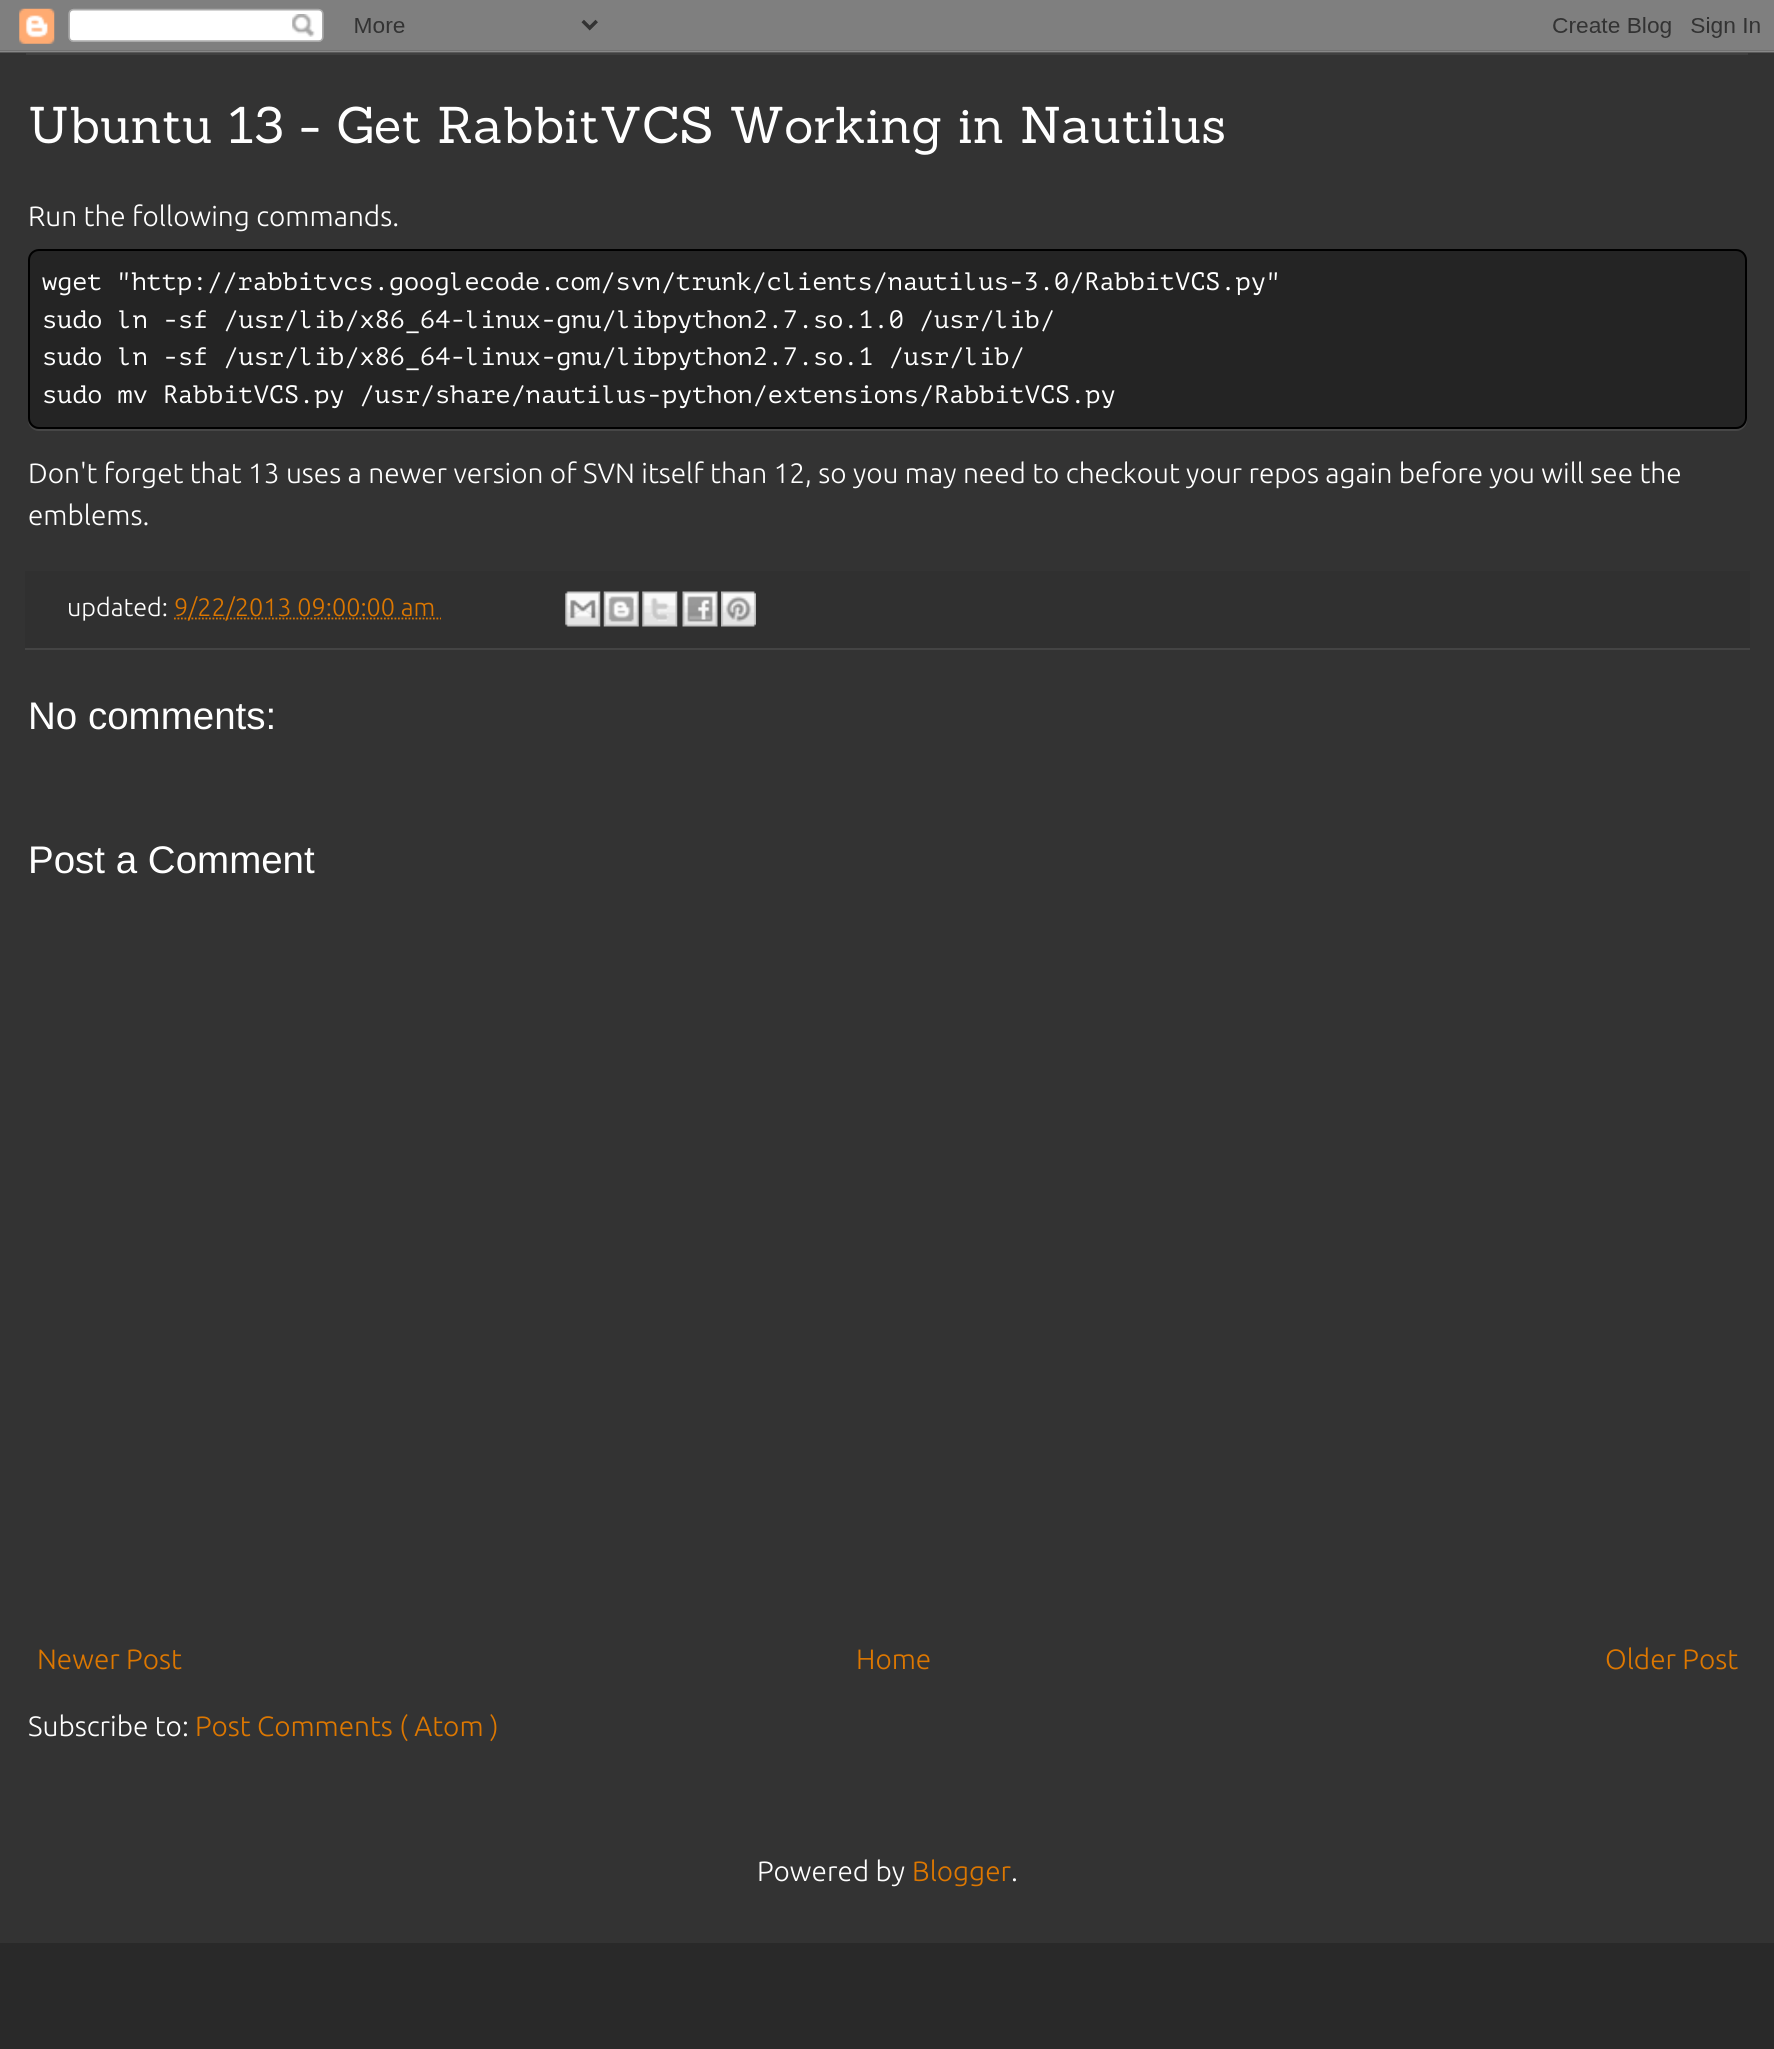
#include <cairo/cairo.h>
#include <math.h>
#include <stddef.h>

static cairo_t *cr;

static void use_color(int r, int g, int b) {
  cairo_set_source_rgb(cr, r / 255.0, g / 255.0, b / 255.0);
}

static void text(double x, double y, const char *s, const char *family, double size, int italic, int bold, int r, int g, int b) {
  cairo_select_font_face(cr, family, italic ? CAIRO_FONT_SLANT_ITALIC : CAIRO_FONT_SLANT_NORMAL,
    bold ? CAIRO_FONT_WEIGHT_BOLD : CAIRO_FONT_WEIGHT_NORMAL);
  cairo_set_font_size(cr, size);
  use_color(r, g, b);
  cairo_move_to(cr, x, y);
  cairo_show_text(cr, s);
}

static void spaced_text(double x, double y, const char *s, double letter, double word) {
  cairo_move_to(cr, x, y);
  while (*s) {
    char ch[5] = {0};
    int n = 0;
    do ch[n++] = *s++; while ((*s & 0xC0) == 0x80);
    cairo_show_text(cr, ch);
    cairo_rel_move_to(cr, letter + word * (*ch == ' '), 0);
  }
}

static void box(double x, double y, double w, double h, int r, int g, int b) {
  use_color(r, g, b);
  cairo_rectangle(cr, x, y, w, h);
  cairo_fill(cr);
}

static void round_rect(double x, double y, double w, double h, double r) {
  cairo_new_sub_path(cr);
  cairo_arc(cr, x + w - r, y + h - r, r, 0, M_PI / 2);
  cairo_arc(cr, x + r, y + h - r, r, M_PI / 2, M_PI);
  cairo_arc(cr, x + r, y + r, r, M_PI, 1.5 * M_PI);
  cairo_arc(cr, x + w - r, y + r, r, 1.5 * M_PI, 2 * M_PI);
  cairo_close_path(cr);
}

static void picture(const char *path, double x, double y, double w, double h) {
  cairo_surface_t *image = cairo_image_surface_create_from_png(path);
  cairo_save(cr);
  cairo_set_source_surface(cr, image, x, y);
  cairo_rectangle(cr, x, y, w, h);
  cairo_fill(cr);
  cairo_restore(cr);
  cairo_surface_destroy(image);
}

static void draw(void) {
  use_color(41, 41, 41);
  cairo_paint(cr);
  picture("img_01.png", 0, 0, 1774, 53);
  box(0, 53, 1774, 1890, 51, 51, 51);
  box(26, 53, 1722, 2, 64, 64, 64);
  use_color(71, 71, 71);
  cairo_new_path(cr);
  cairo_move_to(cr, 28, 419);
  cairo_line_to(cr, 28, 420);
  cairo_curve_to(cr, 28, 426, 33, 431, 39, 431);
  cairo_line_to(cr, 1736, 431);
  cairo_curve_to(cr, 1742, 431, 1747, 426, 1747, 420);
  cairo_line_to(cr, 1747, 261);
  cairo_line_to(cr, 1746, 258);
  cairo_line_to(cr, 1746, 419);
  cairo_curve_to(cr, 1746, 424, 1742, 429, 1736, 429);
  cairo_line_to(cr, 38, 429);
  cairo_curve_to(cr, 33, 429, 28, 424, 28, 419);
  cairo_close_path(cr);
  cairo_fill(cr);
  cairo_set_source_rgba(cr, 0, 0, 0, 0.3);
  round_rect(29, 250, 1717, 178, 10);
  cairo_fill_preserve(cr);
  use_color(0, 0, 0);
  cairo_stroke(cr);
  box(25, 571, 1725, 77, 48, 48, 48);
  box(25, 648, 1725, 2, 68, 68, 68);
  cairo_new_path(cr);
  cairo_move_to(cr, 174, 618.5);
  cairo_line_to(cr, 441, 618.5);
  use_color(221, 119, 0);
  cairo_set_line_width(cr, 1.8);
  cairo_set_dash(cr, (double[]){1.75, 1.75}, 2, 0);
  cairo_stroke(cr);
  picture("img_02.png", 565, 591, 36, 36);
  picture("img_03.png", 603, 591, 36, 36);
  picture("img_04.png", 642, 591, 36, 36);
  picture("img_05.png", 682, 591, 36, 36);
  picture("img_06.png", 721, 591, 35, 36);
  text(28, 143, "Ubuntu 13 - Get RabbitVCS Working in Nautilus", "Sanchez", 50.4, 0, 0, 255, 255, 255);
  text(28, 226, "Run the following commands.", "Ubuntu Light", 28, 0, 0, 255, 255, 255);
  cairo_select_font_face(cr, "PT Mono", CAIRO_FONT_SLANT_NORMAL, CAIRO_FONT_WEIGHT_NORMAL);
  cairo_set_font_size(cr, 25.2);
  spaced_text(42, 290, "wget \"http://rabbitvcs.googlecode.com/svn/trunk/clients/nautilus-3.0/RabbitVCS.py\"", 0, -1);
  text(42, 328, "sudo ln -sf /usr/lib/x86_64-linux-gnu/libpython2.7.so.1.0 /usr/lib/", "PT Mono", 25.2, 0, 0, 255, 255, 255);
  text(42, 365, "sudo ln -sf /usr/lib/x86_64-linux-gnu/libpython2.7.so.1 /usr/lib/", "PT Mono", 25.2, 0, 0, 255, 255, 255);
  text(42, 403, "sudo mv RabbitVCS.py /usr/share/nautilus-python/extensions/RabbitVCS.py", "PT Mono", 25.2, 0, 0, 255, 255, 255);
  text(28, 483, "Don't forget that 13 uses a newer version of SVN itself than 12, so you may need to checkout your repos again before you will see the", "Ubuntu Light", 28, 0, 0, 255, 255, 255);
  text(28, 525, "emblems.", "Ubuntu Light", 28, 0, 0, 255, 255, 255);
  text(67, 616, "updated:", "Ubuntu Light", 25.2, 0, 0, 255, 255, 255);
  text(174, 616, "9/22/2013 09:00:00 am", "Ubuntu Light", 25.2, 0, 0, 221, 119, 0);
  text(28, 729, "No comments:", "Liberation Sans", 38.5, 0, 0, 255, 255, 255);
  text(28, 873, "Post a Comment", "Liberation Sans", 38.5, 0, 0, 255, 255, 255);
  text(37, 1669, "Newer Post", "Ubuntu Light", 28, 0, 0, 221, 119, 0);
  text(856, 1669, "Home", "Ubuntu Light", 28, 0, 0, 221, 119, 0);
  text(1605, 1669, "Older Post", "Ubuntu Light", 28, 0, 0, 221, 119, 0);
  text(28, 1736, "Subscribe to:", "Ubuntu Light", 28, 0, 0, 255, 255, 255);
  text(195, 1736, "Post Comments ( Atom )", "Ubuntu Light", 28, 0, 0, 221, 119, 0);
  text(757, 1881, "Powered by", "Ubuntu Light", 28, 0, 0, 255, 255, 255);
  text(912, 1881, "Blogger", "Ubuntu Light", 28, 0, 0, 221, 119, 0);
  text(1011, 1881, ".", "Ubuntu Light", 28, 0, 0, 255, 255, 255);
}

int main(void) {
  cairo_surface_t *surface = cairo_image_surface_create(CAIRO_FORMAT_RGB24, 1774, 2049);
  cr = cairo_create(surface);
  cairo_font_options_t *options = cairo_font_options_create();
  cairo_font_options_set_hint_metrics(options, CAIRO_HINT_METRICS_OFF);
  cairo_font_options_set_hint_style(options, CAIRO_HINT_STYLE_NONE);
  cairo_set_font_options(cr, options);
  cairo_set_miter_limit(cr, 4);
  draw();
  cairo_surface_write_to_png(surface, "out.png");
  cairo_font_options_destroy(options);
  cairo_destroy(cr);
  cairo_surface_destroy(surface);
  return 0;
}
